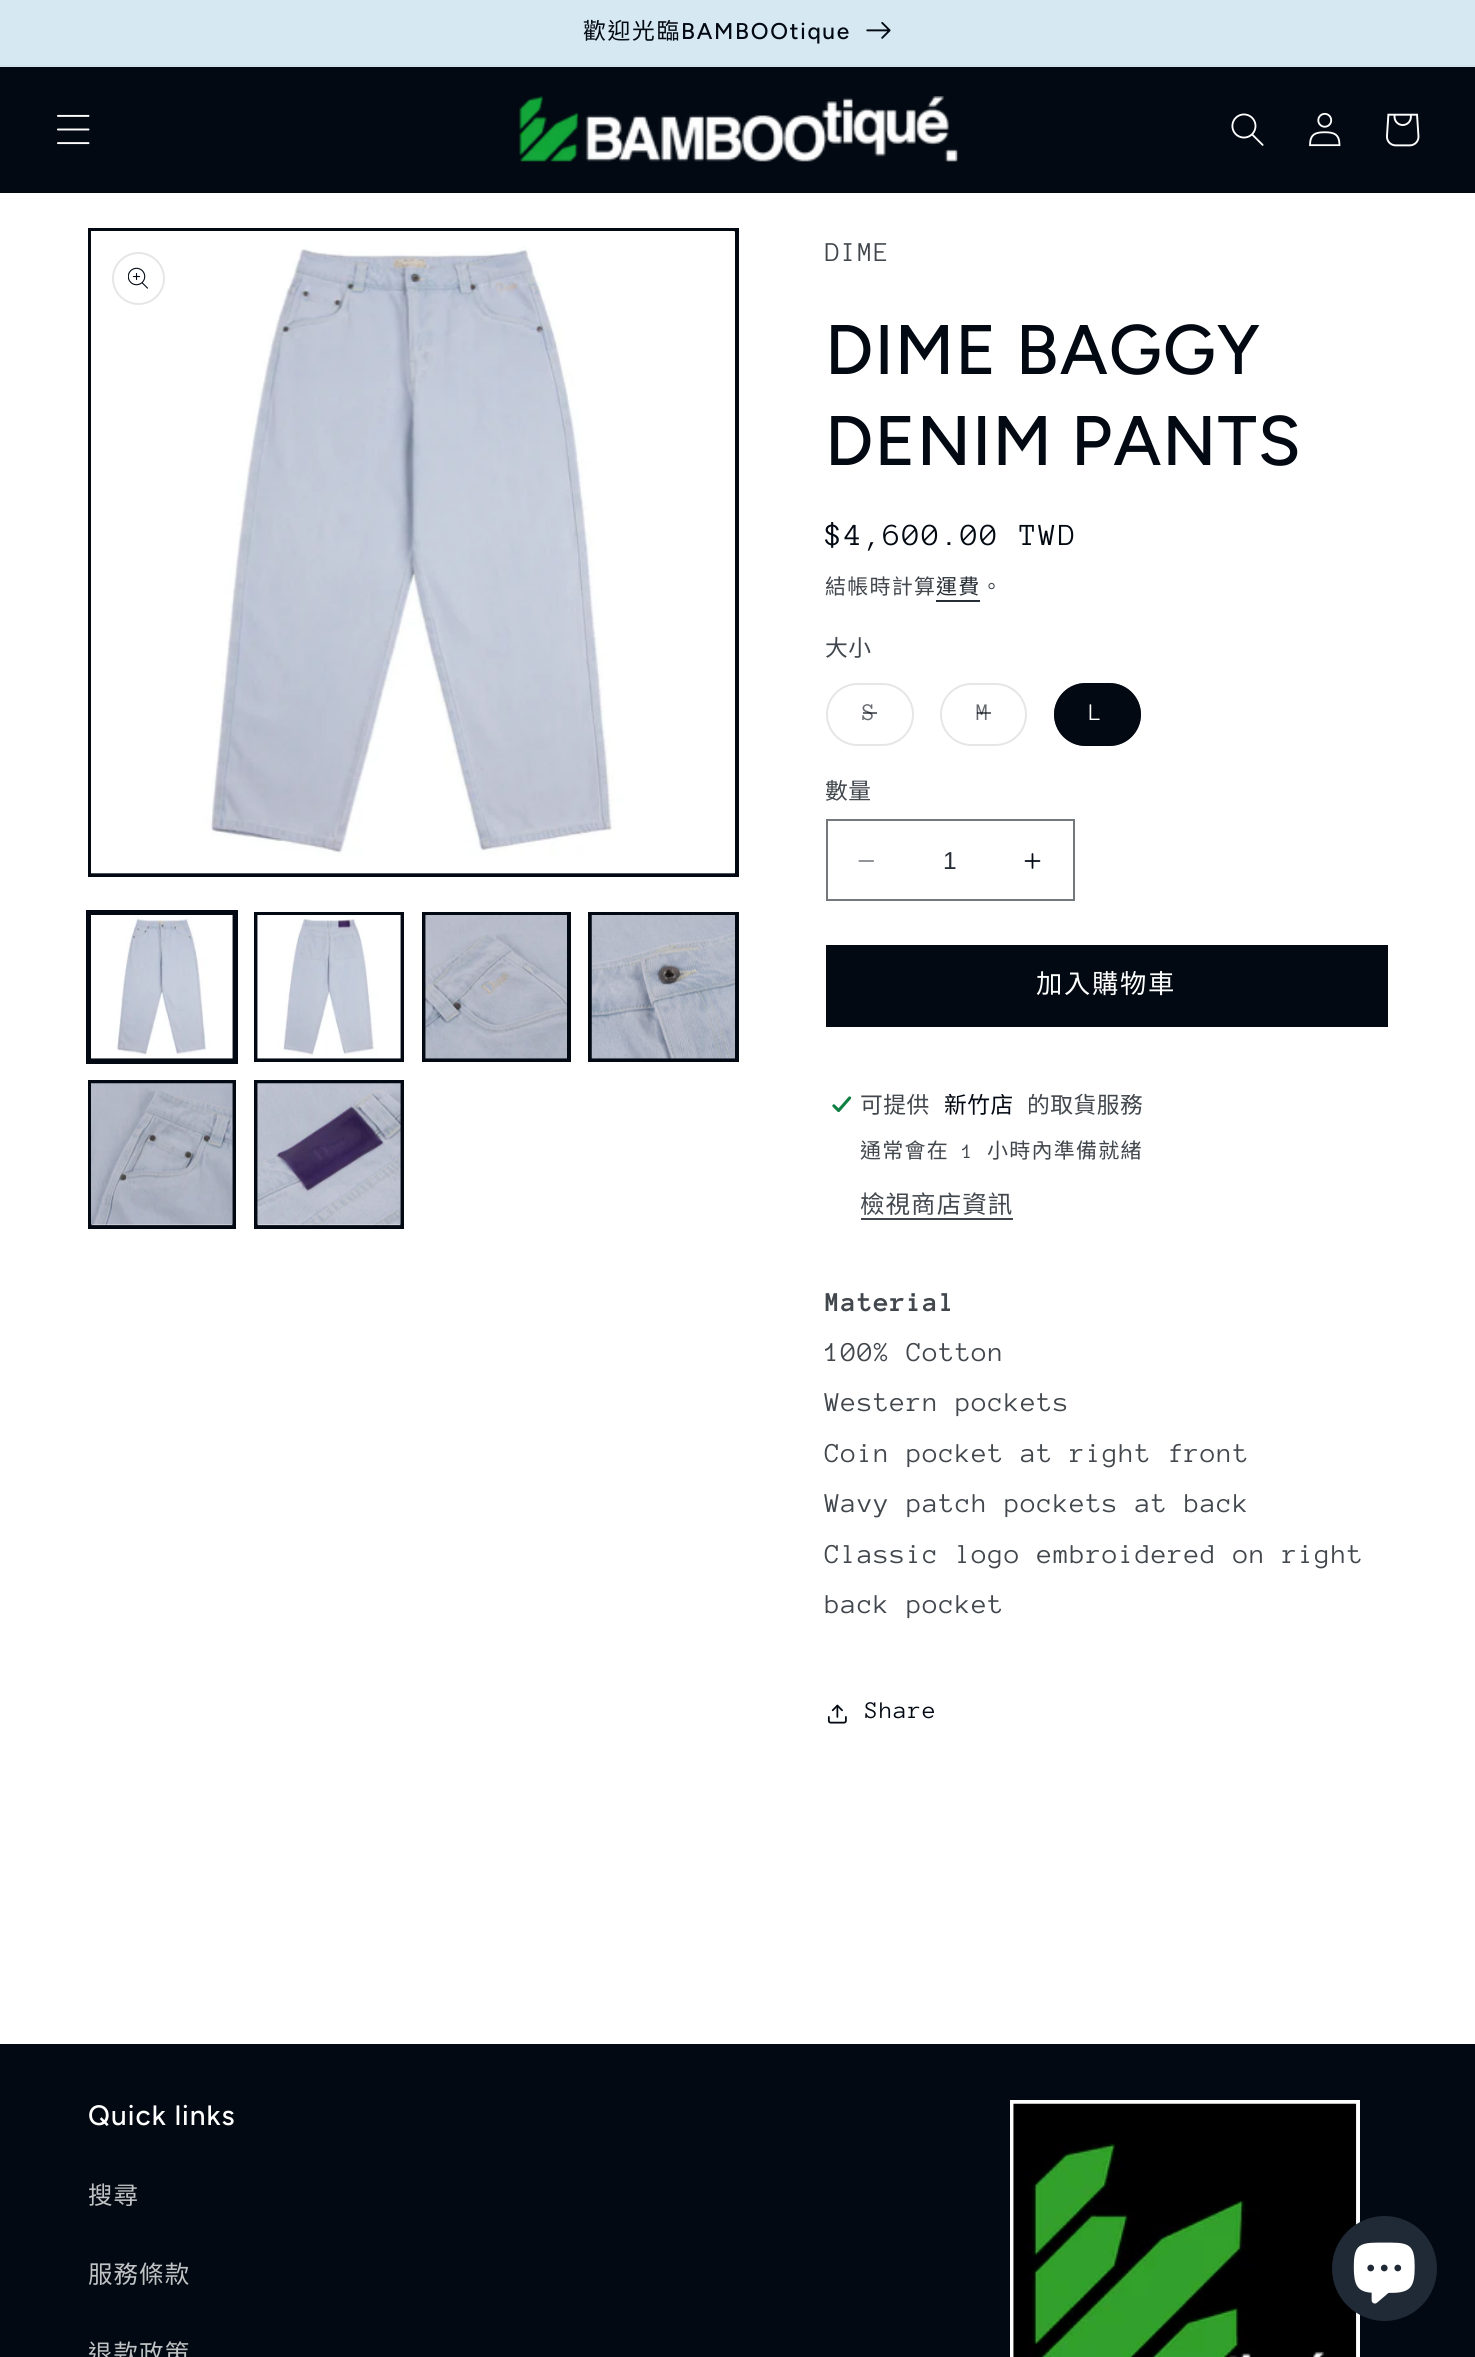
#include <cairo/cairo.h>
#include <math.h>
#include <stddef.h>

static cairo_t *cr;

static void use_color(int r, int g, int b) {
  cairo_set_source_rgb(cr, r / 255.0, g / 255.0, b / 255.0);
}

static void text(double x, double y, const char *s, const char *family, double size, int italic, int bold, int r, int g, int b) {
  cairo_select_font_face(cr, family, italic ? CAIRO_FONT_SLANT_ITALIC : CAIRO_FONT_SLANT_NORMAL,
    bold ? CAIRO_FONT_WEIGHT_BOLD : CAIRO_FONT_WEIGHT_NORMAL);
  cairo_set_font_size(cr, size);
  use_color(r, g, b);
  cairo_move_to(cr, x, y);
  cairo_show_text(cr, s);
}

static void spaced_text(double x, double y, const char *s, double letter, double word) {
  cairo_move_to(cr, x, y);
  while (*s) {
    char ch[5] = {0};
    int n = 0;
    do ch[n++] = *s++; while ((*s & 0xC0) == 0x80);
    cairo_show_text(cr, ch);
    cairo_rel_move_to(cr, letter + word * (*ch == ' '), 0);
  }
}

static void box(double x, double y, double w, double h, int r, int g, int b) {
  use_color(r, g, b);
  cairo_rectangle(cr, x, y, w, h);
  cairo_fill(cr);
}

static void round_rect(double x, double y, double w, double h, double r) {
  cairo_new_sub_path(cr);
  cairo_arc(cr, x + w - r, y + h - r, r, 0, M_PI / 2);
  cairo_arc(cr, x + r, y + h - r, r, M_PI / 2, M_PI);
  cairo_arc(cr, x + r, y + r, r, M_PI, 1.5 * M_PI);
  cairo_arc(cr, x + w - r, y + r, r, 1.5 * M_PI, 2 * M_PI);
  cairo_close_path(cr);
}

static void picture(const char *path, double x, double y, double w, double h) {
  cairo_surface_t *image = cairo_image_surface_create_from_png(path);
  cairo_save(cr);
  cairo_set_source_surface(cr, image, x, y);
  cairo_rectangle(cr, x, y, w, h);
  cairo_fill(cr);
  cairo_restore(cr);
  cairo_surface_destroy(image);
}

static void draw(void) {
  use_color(255, 255, 255);
  cairo_paint(cr);
  box(0, 65, 1475, 2, 210, 227, 236);
  box(0, 0, 1475, 65, 214, 232, 241);
  picture("img_01.png", 866, 22, 25, 17);
  box(0, 67, 1475, 126, 2, 9, 18);
  picture("img_02.png", 57, 114, 33, 31);
  picture("img_03.png", 519, 96, 439, 66);
  picture("img_04.png", 1231, 113, 33, 33);
  picture("img_05.png", 1309, 112, 32, 35);
  picture("img_06.png", 1386, 113, 34, 34);
  cairo_rectangle(cr, 90, 230, 647, 645);
  cairo_set_line_width(cr, 4);
  cairo_stroke(cr);
  picture("img_07.png", 91, 231, 644, 643);
  cairo_arc(cr, 138.5, 278.5, 25.5, 0, 2 * M_PI);
  use_color(230, 230, 231);
  cairo_set_line_width(cr, 2);
  cairo_stroke(cr);
  picture("img_08.png", 128, 267, 20, 22);
  cairo_rectangle(cr, 87, 911, 150, 152);
  use_color(2, 9, 18);
  cairo_stroke(cr);
  cairo_rectangle(cr, 90, 914, 144, 146);
  cairo_set_line_width(cr, 4);
  cairo_stroke(cr);
  picture("img_09.png", 91, 915, 142, 144);
  cairo_rectangle(cr, 256, 914, 146, 146);
  cairo_stroke(cr);
  picture("img_10.png", 257, 915, 144, 144);
  cairo_rectangle(cr, 424, 914, 145, 146);
  cairo_stroke(cr);
  picture("img_11.png", 425, 915, 142, 144);
  cairo_rectangle(cr, 590, 914, 147, 146);
  cairo_stroke(cr);
  picture("img_12.png", 591, 915, 144, 144);
  cairo_rectangle(cr, 90, 1082, 144, 145);
  cairo_stroke(cr);
  picture("img_13.png", 91, 1083, 142, 143);
  cairo_rectangle(cr, 256, 1082, 146, 145);
  cairo_stroke(cr);
  picture("img_14.png", 257, 1083, 144, 143);
  box(936, 600, 44, 2, 40, 46, 54);
  round_rect(827, 684, 86, 61, 30.5);
  use_color(230, 230, 231);
  cairo_set_line_width(cr, 2);
  cairo_stroke(cr);
  round_rect(941, 684, 85, 61, 30.5);
  cairo_stroke(cr);
  use_color(2, 9, 18);
  round_rect(1054, 683, 87, 63, 31.5);
  cairo_fill(cr);
  round_rect(1055, 684, 85, 61, 30.5);
  cairo_set_source_rgba(cr, 0.008, 0.035, 0.071, 0.55);
  cairo_stroke(cr);
  picture("img_15.png", 858, 860, 16, 2);
  picture("img_16.png", 1024, 853, 17, 16);
  cairo_rectangle(cr, 827, 820, 247, 80);
  use_color(116, 120, 125);
  cairo_stroke(cr);
  box(826, 945, 562, 82, 2, 9, 18);
  picture("img_17.png", 832, 1096, 20, 17);
  box(861, 1218, 152, 2, 65, 71, 77);
  picture("img_18.png", 827, 1704, 20, 20);
  box(0, 2044, 1475, 313, 2, 9, 18);
  cairo_rectangle(cr, 1012, 2102, 346, 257);
  use_color(255, 255, 255);
  cairo_set_line_width(cr, 4);
  cairo_stroke(cr);
  picture("img_19.png", 1013, 2103, 344, 254);
  use_color(32, 42, 54);
  cairo_arc(cr, 1384.5, 2268.5, 52.5, 0, 2 * M_PI);
  cairo_fill(cr);
  picture("img_20.png", 1353, 2242, 62, 62);
  cairo_select_font_face(cr, "Noto Sans CJK TC", CAIRO_FONT_SLANT_NORMAL, CAIRO_FONT_WEIGHT_NORMAL);
  cairo_set_font_size(cr, 22.75);
  use_color(2, 9, 18);
  spaced_text(583, 39, "歡迎光臨", 1.75, 0);
  cairo_select_font_face(cr, "Figtree Medium", CAIRO_FONT_SLANT_NORMAL, CAIRO_FONT_WEIGHT_NORMAL);
  spaced_text(681, 39, "BAMBOOtique", 1.75, 0);
  cairo_select_font_face(cr, "Anonymous Pro", CAIRO_FONT_SLANT_NORMAL, CAIRO_FONT_WEIGHT_NORMAL);
  cairo_set_font_size(cr, 28);
  use_color(65, 71, 77);
  spaced_text(825, 261, "DIME", 1.05, 0);
  cairo_select_font_face(cr, "Figtree Medium", CAIRO_FONT_SLANT_NORMAL, CAIRO_FONT_WEIGHT_NORMAL);
  cairo_set_font_size(cr, 70);
  use_color(2, 9, 18);
  spaced_text(825, 374, "DIME BAGGY", 1.05, 0);
  spaced_text(825, 465, "DENIM PANTS", 1.05, 0);
  cairo_select_font_face(cr, "Anonymous Pro", CAIRO_FONT_SLANT_NORMAL, CAIRO_FONT_WEIGHT_NORMAL);
  cairo_set_font_size(cr, 31.5);
  spaced_text(825, 545, "$4,600.00 TWD", 2.25, 0);
  cairo_select_font_face(cr, "Noto Sans CJK TC", CAIRO_FONT_SLANT_NORMAL, CAIRO_FONT_WEIGHT_NORMAL);
  cairo_set_font_size(cr, 21);
  use_color(65, 71, 77);
  spaced_text(825, 594, "結帳時計算", 1.25, 0);
  use_color(40, 46, 54);
  spaced_text(936, 594, "運費", 1.25, 0);
  use_color(65, 71, 77);
  spaced_text(981, 594, "。", 1.25, 0);
  cairo_set_font_size(cr, 22.75);
  spaced_text(825, 656, "大小", 0.5, 0);
  cairo_select_font_face(cr, "Anonymous Pro", CAIRO_FONT_SLANT_NORMAL, CAIRO_FONT_WEIGHT_NORMAL);
  cairo_set_font_size(cr, 24.5);
  use_color(103, 107, 113);
  spaced_text(862, 720, "S", 1.75, 0);
  cairo_set_source_rgba(cr, 0.008, 0.035, 0.071, 0.6);
  cairo_rectangle(cr, 863, 712, 14, 2);
  cairo_fill(cr);
  use_color(103, 107, 113);
  spaced_text(976, 720, "M", 1.75, 0);
  cairo_set_source_rgba(cr, 0.008, 0.035, 0.071, 0.6);
  cairo_rectangle(cr, 977, 712, 14, 2);
  cairo_fill(cr);
  use_color(255, 255, 255);
  spaced_text(1089, 720, "L", 1.75, 0);
  cairo_select_font_face(cr, "Noto Sans CJK TC", CAIRO_FONT_SLANT_NORMAL, CAIRO_FONT_WEIGHT_NORMAL);
  cairo_set_font_size(cr, 22.75);
  use_color(65, 71, 77);
  spaced_text(825, 799, "數量", 0.5, 0);
  text(943, 869, "1", "Liberation Sans", 24.5, 0, 0, 40, 46, 54);
  cairo_select_font_face(cr, "Noto Sans CJK TC", CAIRO_FONT_SLANT_NORMAL, CAIRO_FONT_WEIGHT_NORMAL);
  cairo_set_font_size(cr, 26.25);
  use_color(255, 255, 255);
  spaced_text(1036, 993, "加入購物車", 1.75, 0);
  cairo_set_font_size(cr, 22.75);
  use_color(65, 71, 77);
  spaced_text(860, 1113, "可提供", 0.5, 0);
  use_color(2, 9, 18);
  spaced_text(944, 1113, "新竹店", 0.5, 0);
  use_color(65, 71, 77);
  spaced_text(1027, 1113, "的取貨服務", 0.5, 0);
  cairo_set_font_size(cr, 21);
  spaced_text(860, 1158, "通常會在", 1.25, 0);
  cairo_select_font_face(cr, "Anonymous Pro", CAIRO_FONT_SLANT_NORMAL, CAIRO_FONT_WEIGHT_NORMAL);
  spaced_text(962, 1158, "1", 1.25, 0);
  cairo_select_font_face(cr, "Noto Sans CJK TC", CAIRO_FONT_SLANT_NORMAL, CAIRO_FONT_WEIGHT_NORMAL);
  spaced_text(987, 1158, "小時內準備就緒", 1.25, 0);
  cairo_set_font_size(cr, 24.5);
  spaced_text(860, 1213, "檢視商店資訊", 1.05, 0);
  cairo_select_font_face(cr, "Anonymous Pro", CAIRO_FONT_SLANT_NORMAL, CAIRO_FONT_WEIGHT_BOLD);
  cairo_set_font_size(cr, 28);
  spaced_text(825, 1311, "Material", 1.05, 0);
  cairo_select_font_face(cr, "Anonymous Pro", CAIRO_FONT_SLANT_NORMAL, CAIRO_FONT_WEIGHT_NORMAL);
  spaced_text(825, 1361, "100% Cotton", 1.05, 0);
  spaced_text(825, 1411, "Western pockets", 1.05, 0);
  spaced_text(825, 1462, "Coin pocket at right front", 1.05, 0);
  spaced_text(825, 1512, "Wavy patch pockets at back", 1.05, 0);
  spaced_text(825, 1563, "Classic logo embroidered on right", 1.05, 0);
  spaced_text(825, 1613, "back pocket", 1.05, 0);
  cairo_set_font_size(cr, 24.5);
  use_color(2, 9, 18);
  spaced_text(865, 1718, "Share", 1.05, 0);
  cairo_select_font_face(cr, "Figtree Medium", CAIRO_FONT_SLANT_NORMAL, CAIRO_FONT_WEIGHT_NORMAL);
  cairo_set_font_size(cr, 28);
  use_color(255, 255, 255);
  spaced_text(88, 2125, "Quick links", 1.05, 0);
  cairo_select_font_face(cr, "Noto Sans CJK TC", CAIRO_FONT_SLANT_NORMAL, CAIRO_FONT_WEIGHT_NORMAL);
  cairo_set_font_size(cr, 24.5);
  use_color(192, 194, 196);
  spaced_text(88, 2204, "搜尋", 1.05, 0);
  spaced_text(88, 2283, "服務條款", 1.05, 0);
  spaced_text(88, 2362, "退款政策", 1.05, 0);
}

int main(void) {
  cairo_surface_t *surface = cairo_image_surface_create(CAIRO_FORMAT_RGB24, 1475, 2357);
  cr = cairo_create(surface);
  cairo_font_options_t *options = cairo_font_options_create();
  cairo_font_options_set_hint_metrics(options, CAIRO_HINT_METRICS_OFF);
  cairo_font_options_set_hint_style(options, CAIRO_HINT_STYLE_NONE);
  cairo_set_font_options(cr, options);
  cairo_set_miter_limit(cr, 4);
  draw();
  cairo_surface_write_to_png(surface, "out.png");
  cairo_font_options_destroy(options);
  cairo_destroy(cr);
  cairo_surface_destroy(surface);
  return 0;
}
